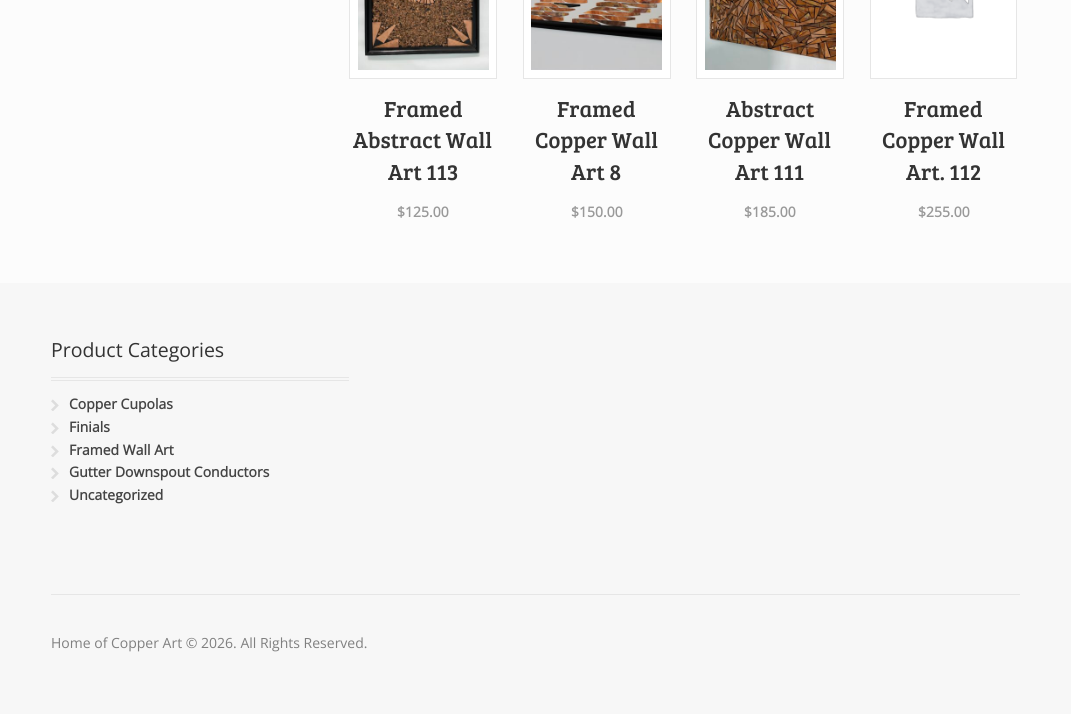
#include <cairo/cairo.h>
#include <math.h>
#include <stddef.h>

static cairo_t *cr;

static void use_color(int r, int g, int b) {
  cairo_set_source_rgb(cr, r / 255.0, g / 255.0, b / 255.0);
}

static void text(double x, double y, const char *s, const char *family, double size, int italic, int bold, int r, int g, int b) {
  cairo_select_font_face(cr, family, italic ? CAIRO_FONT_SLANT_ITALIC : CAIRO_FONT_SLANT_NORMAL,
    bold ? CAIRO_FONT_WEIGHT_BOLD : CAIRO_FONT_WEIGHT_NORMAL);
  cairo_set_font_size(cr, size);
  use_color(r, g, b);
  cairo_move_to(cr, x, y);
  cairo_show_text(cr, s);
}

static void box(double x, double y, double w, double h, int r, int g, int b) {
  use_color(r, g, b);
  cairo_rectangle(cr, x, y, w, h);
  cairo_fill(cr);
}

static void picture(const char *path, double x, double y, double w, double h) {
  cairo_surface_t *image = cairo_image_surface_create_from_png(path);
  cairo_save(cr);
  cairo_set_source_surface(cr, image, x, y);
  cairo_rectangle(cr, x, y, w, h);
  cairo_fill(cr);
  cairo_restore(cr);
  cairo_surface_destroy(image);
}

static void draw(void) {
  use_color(252, 252, 252);
  cairo_paint(cr);
  use_color(255, 255, 255);
  cairo_rectangle(cr, 349.5, -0.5, 147, 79);
  cairo_fill_preserve(cr);
  use_color(230, 230, 230);
  cairo_set_line_width(cr, 1);
  cairo_stroke(cr);
  picture("img_01.png", 358, 0, 131, 70);
  use_color(255, 255, 255);
  cairo_rectangle(cr, 523.5, -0.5, 147, 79);
  cairo_fill_preserve(cr);
  use_color(230, 230, 230);
  cairo_stroke(cr);
  picture("img_02.png", 531, 0, 131, 70);
  use_color(255, 255, 255);
  cairo_rectangle(cr, 696.5, -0.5, 147, 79);
  cairo_fill_preserve(cr);
  use_color(230, 230, 230);
  cairo_stroke(cr);
  picture("img_03.png", 705, 0, 131, 70);
  use_color(255, 255, 255);
  cairo_rectangle(cr, 870.5, -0.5, 146, 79);
  cairo_fill_preserve(cr);
  use_color(230, 230, 230);
  cairo_stroke(cr);
  picture("img_04.png", 915, 0, 59, 19);
  box(0, 283, 1071, 431, 247, 247, 247);
  box(51, 377, 298, 1, 230, 230, 230);
  box(51, 380, 298, 1, 230, 230, 230);
  picture("img_05.png", 51, 399, 8, 12);
  picture("img_05.png", 51, 422, 8, 12);
  picture("img_05.png", 51, 445, 8, 12);
  picture("img_05.png", 51, 467, 8, 12);
  picture("img_05.png", 51, 490, 8, 12);
  box(51, 594, 969, 1, 230, 230, 230);
  text(384, 117, "Framed", "Bree Serif", 22.5, 0, 0, 51, 51, 51);
  text(353, 148, "Abstract Wall", "Bree Serif", 22.5, 0, 0, 51, 51, 51);
  text(388, 180, "Art 113", "Bree Serif", 22.5, 0, 0, 51, 51, 51);
  text(397, 217, "$125.00", "Open Sans", 14, 0, 1, 153, 153, 153);
  text(557, 117, "Framed", "Bree Serif", 22.5, 0, 0, 51, 51, 51);
  text(535, 148, "Copper Wall", "Bree Serif", 22.5, 0, 0, 51, 51, 51);
  text(571, 180, "Art 8", "Bree Serif", 22.5, 0, 0, 51, 51, 51);
  text(571, 217, "$150.00", "Open Sans", 14, 0, 1, 153, 153, 153);
  text(726, 117, "Abstract", "Bree Serif", 22.5, 0, 0, 51, 51, 51);
  text(708, 148, "Copper Wall", "Bree Serif", 22.5, 0, 0, 51, 51, 51);
  text(735, 180, "Art 111", "Bree Serif", 22.5, 0, 0, 51, 51, 51);
  text(744, 217, "$185.00", "Open Sans", 14, 0, 1, 153, 153, 153);
  text(904, 117, "Framed", "Bree Serif", 22.5, 0, 0, 51, 51, 51);
  text(882, 148, "Copper Wall", "Bree Serif", 22.5, 0, 0, 51, 51, 51);
  text(906, 180, "Art. 112", "Bree Serif", 22.5, 0, 0, 51, 51, 51);
  text(918, 217, "$255.00", "Open Sans", 14, 0, 1, 153, 153, 153);
  text(51, 357, "Product Categories", "Open Sans", 19.5, 0, 0, 51, 51, 51);
  text(69, 409, "Copper Cupolas", "Open Sans", 14, 0, 1, 68, 68, 68);
  text(69, 432, "Finials", "Open Sans", 14, 0, 1, 68, 68, 68);
  text(69, 455, "Framed Wall Art", "Open Sans", 14, 0, 1, 68, 68, 68);
  text(69, 477, "Gutter Downspout Conductors", "Open Sans", 14, 0, 1, 68, 68, 68);
  text(69, 500, "Uncategorized", "Open Sans", 14, 0, 1, 68, 68, 68);
  text(51, 648, "Home of Copper Art © 2026. All Rights Reserved.", "Open Sans", 14, 0, 0, 128, 128, 128);
}

int main(void) {
  cairo_surface_t *surface = cairo_image_surface_create(CAIRO_FORMAT_RGB24, 1071, 714);
  cr = cairo_create(surface);
  cairo_font_options_t *options = cairo_font_options_create();
  cairo_font_options_set_hint_metrics(options, CAIRO_HINT_METRICS_OFF);
  cairo_font_options_set_hint_style(options, CAIRO_HINT_STYLE_NONE);
  cairo_set_font_options(cr, options);
  cairo_set_miter_limit(cr, 4);
  draw();
  cairo_surface_write_to_png(surface, "out.png");
  cairo_font_options_destroy(options);
  cairo_destroy(cr);
  cairo_surface_destroy(surface);
  return 0;
}
